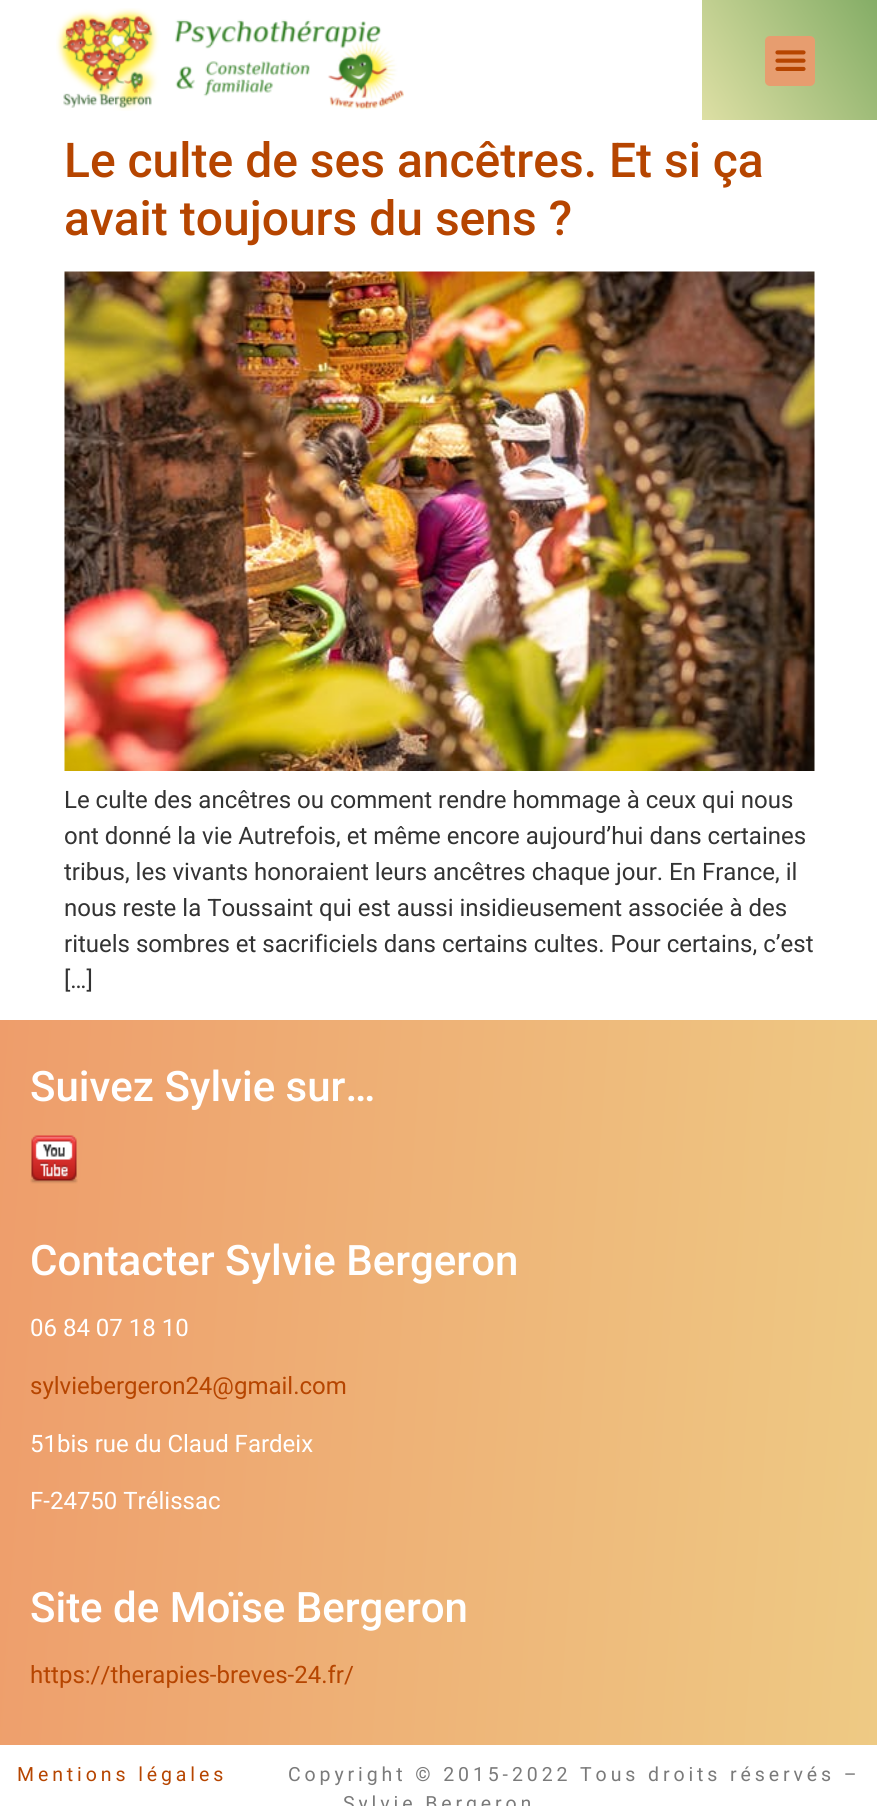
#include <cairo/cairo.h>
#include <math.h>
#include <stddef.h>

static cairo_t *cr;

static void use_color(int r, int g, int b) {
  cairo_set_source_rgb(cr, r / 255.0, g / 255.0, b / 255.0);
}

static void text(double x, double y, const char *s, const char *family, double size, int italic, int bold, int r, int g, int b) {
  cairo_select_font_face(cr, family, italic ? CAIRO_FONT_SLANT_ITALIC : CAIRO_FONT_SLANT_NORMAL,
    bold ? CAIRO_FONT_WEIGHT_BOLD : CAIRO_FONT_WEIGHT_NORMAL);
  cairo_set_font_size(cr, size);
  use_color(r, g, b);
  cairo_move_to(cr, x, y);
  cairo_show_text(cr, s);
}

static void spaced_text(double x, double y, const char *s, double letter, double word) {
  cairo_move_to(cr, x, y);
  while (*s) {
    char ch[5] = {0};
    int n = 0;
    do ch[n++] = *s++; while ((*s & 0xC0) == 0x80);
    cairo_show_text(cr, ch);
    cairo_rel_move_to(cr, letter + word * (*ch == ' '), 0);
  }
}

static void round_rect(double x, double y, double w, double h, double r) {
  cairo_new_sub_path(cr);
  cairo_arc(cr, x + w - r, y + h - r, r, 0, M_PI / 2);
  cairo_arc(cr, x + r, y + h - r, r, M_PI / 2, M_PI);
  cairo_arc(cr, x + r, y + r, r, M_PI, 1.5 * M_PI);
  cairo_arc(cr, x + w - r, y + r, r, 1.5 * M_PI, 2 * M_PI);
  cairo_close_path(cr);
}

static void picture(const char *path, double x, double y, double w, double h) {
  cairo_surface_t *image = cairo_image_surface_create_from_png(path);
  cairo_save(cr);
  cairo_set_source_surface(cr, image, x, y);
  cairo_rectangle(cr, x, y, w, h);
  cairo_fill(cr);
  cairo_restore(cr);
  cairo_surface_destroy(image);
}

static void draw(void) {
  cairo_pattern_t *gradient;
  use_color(255, 255, 255);
  cairo_paint(cr);
  picture("img_01.png", 56, 8, 348, 103);
  gradient = cairo_pattern_create_linear(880, 3.7, 700, 116);
  cairo_pattern_add_color_stop_rgba(gradient, 0, 0.518, 0.678, 0.4, 1);
  cairo_pattern_add_color_stop_rgba(gradient, 1, 0.867, 0.875, 0.643, 1);
  cairo_set_source(cr, gradient);
  cairo_pattern_destroy(gradient);
  cairo_rectangle(cr, 702, 0, 175, 120);
  cairo_fill(cr);
  use_color(231, 157, 111);
  round_rect(765, 36, 50, 50, 5);
  cairo_fill(cr);
  picture("img_02.png", 775, 50, 31, 21);
  picture("img_03.png", 64, 271, 751, 500);
  gradient = cairo_pattern_create_linear(-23, 1350, 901, 1415);
  cairo_pattern_add_color_stop_rgba(gradient, 0, 0.933, 0.616, 0.42, 1);
  cairo_pattern_add_color_stop_rgba(gradient, 1, 0.933, 0.792, 0.518, 1);
  cairo_set_source(cr, gradient);
  cairo_pattern_destroy(gradient);
  cairo_rectangle(cr, 0, 1020, 877, 725);
  cairo_fill(cr);
  picture("img_04.png", 30, 1135, 48, 49);
  text(64, 177, "Le culte de ses ancêtres. Et si ça", "Roboto Medium", 48, 0, 0, 182, 69, 0);
  text(64, 235, "avait toujours du sens ?", "Roboto Medium", 48, 0, 0, 182, 69, 0);
  text(64, 808, "Le culte des ancêtres ou comment rendre hommage à ceux qui nous", "Roboto", 24, 0, 0, 51, 51, 51);
  text(64, 844, "ont donné la vie Autrefois, et même encore aujourd’hui dans certaines", "Roboto", 24, 0, 0, 51, 51, 51);
  text(64, 880, "tribus, les vivants honoraient leurs ancêtres chaque jour. En France, il", "Roboto", 24, 0, 0, 51, 51, 51);
  text(64, 916, "nous reste la Toussaint qui est aussi insidieusement associée à des", "Roboto", 24, 0, 0, 51, 51, 51);
  text(64, 952, "rituels sombres et sacrificiels dans certains cultes. Pour certains, c’est", "Roboto", 24, 0, 0, 51, 51, 51);
  text(64, 988, "[…]", "Roboto", 24, 0, 0, 51, 51, 51);
  text(30, 1101, "Suivez Sylvie sur…", "Roboto Medium", 42, 0, 0, 255, 255, 255);
  text(30, 1275, "Contacter Sylvie Bergeron", "Roboto Medium", 42, 0, 0, 255, 255, 255);
  text(30, 1336, "06 84 07 18 10", "Roboto", 24, 0, 0, 255, 255, 255);
  text(30, 1394, "sylviebergeron24@gmail.com", "Roboto", 24, 0, 0, 182, 69, 0);
  text(30, 1452, "51bis rue du Claud Fardeix", "Roboto", 24, 0, 0, 255, 255, 255);
  text(30, 1509, "F-24750 Trélissac", "Roboto", 24, 0, 0, 255, 255, 255);
  text(30, 1622, "Site de Moïse Bergeron", "Roboto Medium", 42, 0, 0, 255, 255, 255);
  text(30, 1683, "https://therapies-breves-24.fr/", "Roboto", 24, 0, 0, 182, 69, 0);
  cairo_set_font_size(cr, 19.5);
  spaced_text(17, 1781, "Mentions légales", 3.9, 0);
  use_color(122, 122, 122);
  spaced_text(288, 1781, "Copyright © 2015-2022 Tous droits réservés –", 3.9, 0);
  spaced_text(343, 1810, "Sylvie Bergeron", 3.9, 0);
}

int main(void) {
  cairo_surface_t *surface = cairo_image_surface_create(CAIRO_FORMAT_RGB24, 877, 1806);
  cr = cairo_create(surface);
  cairo_font_options_t *options = cairo_font_options_create();
  cairo_font_options_set_hint_metrics(options, CAIRO_HINT_METRICS_OFF);
  cairo_font_options_set_hint_style(options, CAIRO_HINT_STYLE_NONE);
  cairo_set_font_options(cr, options);
  cairo_set_miter_limit(cr, 4);
  draw();
  cairo_surface_write_to_png(surface, "out.png");
  cairo_font_options_destroy(options);
  cairo_destroy(cr);
  cairo_surface_destroy(surface);
  return 0;
}
